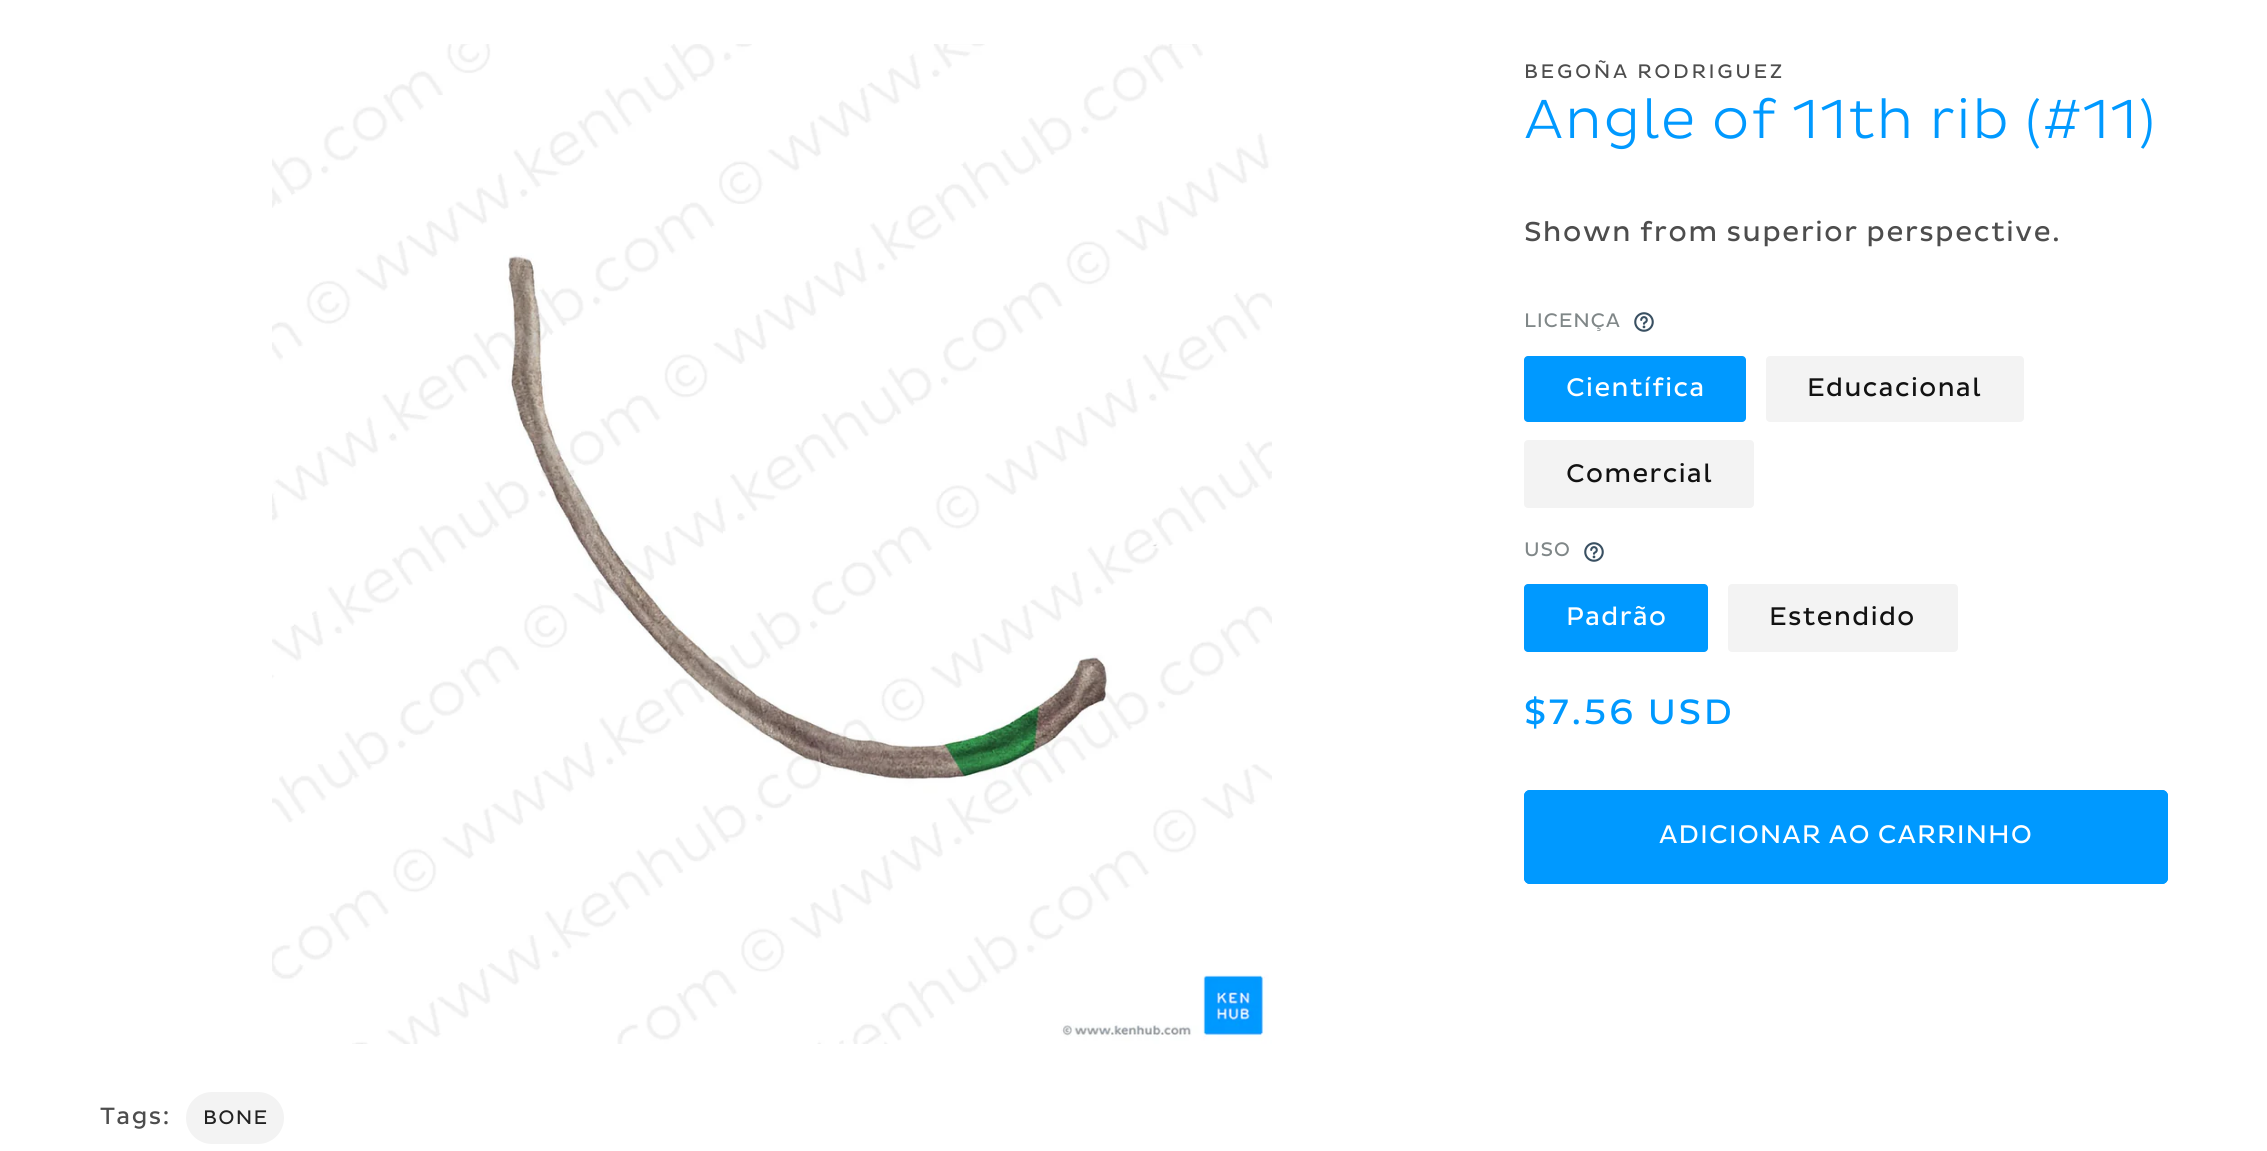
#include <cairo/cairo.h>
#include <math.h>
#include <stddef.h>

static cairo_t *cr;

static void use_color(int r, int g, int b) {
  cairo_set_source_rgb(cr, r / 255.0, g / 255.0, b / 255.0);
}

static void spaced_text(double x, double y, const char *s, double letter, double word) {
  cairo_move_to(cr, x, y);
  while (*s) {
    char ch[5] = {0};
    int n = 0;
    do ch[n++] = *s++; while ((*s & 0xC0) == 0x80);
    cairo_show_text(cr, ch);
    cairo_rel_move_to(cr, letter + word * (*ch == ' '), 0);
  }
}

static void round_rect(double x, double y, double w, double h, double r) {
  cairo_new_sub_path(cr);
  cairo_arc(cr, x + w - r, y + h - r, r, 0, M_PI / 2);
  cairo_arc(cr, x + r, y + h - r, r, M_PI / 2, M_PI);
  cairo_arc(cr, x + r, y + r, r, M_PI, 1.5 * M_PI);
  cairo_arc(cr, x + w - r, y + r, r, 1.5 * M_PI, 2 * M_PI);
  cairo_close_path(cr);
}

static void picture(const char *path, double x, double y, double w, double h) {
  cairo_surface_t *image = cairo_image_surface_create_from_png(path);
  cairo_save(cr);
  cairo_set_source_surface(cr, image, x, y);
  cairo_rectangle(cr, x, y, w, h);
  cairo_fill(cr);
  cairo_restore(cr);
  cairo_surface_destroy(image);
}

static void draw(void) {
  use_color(255, 255, 255);
  cairo_paint(cr);
  picture("img_01.png", 272, 44, 1000, 1000);
  picture("img_02.png", 1634, 312, 20, 20);
  use_color(0, 153, 255);
  round_rect(1524, 356, 222, 66, 4);
  cairo_fill(cr);
  use_color(243, 243, 243);
  round_rect(1766, 356, 258, 66, 4);
  cairo_fill(cr);
  round_rect(1524, 440, 230, 68, 4);
  cairo_fill(cr);
  picture("img_02.png", 1584, 542, 20, 20);
  use_color(0, 153, 255);
  round_rect(1524, 584, 184, 68, 4);
  cairo_fill(cr);
  use_color(243, 243, 243);
  round_rect(1728, 584, 230, 68, 4);
  cairo_fill(cr);
  use_color(0, 153, 255);
  round_rect(1524, 790, 644, 94, 6);
  cairo_fill(cr);
  round_rect(1525, 791, 642, 92, 5);
  cairo_stroke(cr);
  use_color(243, 243, 243);
  round_rect(186, 1092, 98, 52, 26);
  cairo_fill(cr);
  cairo_select_font_face(cr, "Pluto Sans", CAIRO_FONT_SLANT_NORMAL, CAIRO_FONT_WEIGHT_NORMAL);
  cairo_set_font_size(cr, 20);
  use_color(77, 77, 77);
  spaced_text(1524, 78, "BEGOÑA RODRIGUEZ", 2.6, 0);
  cairo_select_font_face(cr, "Pluto Sans Light", CAIRO_FONT_SLANT_NORMAL, CAIRO_FONT_WEIGHT_NORMAL);
  cairo_set_font_size(cr, 56);
  use_color(0, 153, 255);
  spaced_text(1524, 138, "Angle of 11th rib (#11)", 1.2, 0);
  cairo_select_font_face(cr, "Pluto Sans", CAIRO_FONT_SLANT_NORMAL, CAIRO_FONT_WEIGHT_NORMAL);
  cairo_set_font_size(cr, 28);
  use_color(77, 77, 77);
  spaced_text(1524, 241, "Shown from superior perspective.", 1.2, 0);
  cairo_set_font_size(cr, 20);
  use_color(128, 135, 136);
  spaced_text(1524, 327, "LICENÇA", 0.75, 0);
  cairo_set_font_size(cr, 26);
  use_color(255, 255, 255);
  spaced_text(1566, 396, "Científica", 1, 0);
  use_color(18, 18, 18);
  spaced_text(1807, 396, "Educacional", 1, 0);
  spaced_text(1566, 482, "Comercial", 1, 0);
  cairo_set_font_size(cr, 20);
  use_color(128, 135, 136);
  spaced_text(1524, 556, "USO", 0.75, 0);
  cairo_set_font_size(cr, 26);
  use_color(255, 255, 255);
  spaced_text(1566, 625, "Padrão", 1, 0);
  use_color(18, 18, 18);
  spaced_text(1769, 625, "Estendido", 1, 0);
  cairo_set_font_size(cr, 36);
  use_color(0, 153, 255);
  spaced_text(1524, 724, "$7.56 USD", 2.6, 0);
  cairo_set_font_size(cr, 26);
  use_color(255, 255, 255);
  spaced_text(1659, 843, "ADICIONAR AO CARRINHO", 1, 0);
  cairo_set_font_size(cr, 24);
  use_color(77, 77, 77);
  spaced_text(100, 1124, "Tags:", 1.2, 0);
  cairo_set_font_size(cr, 20);
  use_color(34, 34, 34);
  spaced_text(203, 1124, "BONE", 1.2, 0);
}

int main(void) {
  cairo_surface_t *surface = cairo_image_surface_create(CAIRO_FORMAT_RGB24, 2267, 1151);
  cr = cairo_create(surface);
  cairo_font_options_t *options = cairo_font_options_create();
  cairo_font_options_set_hint_metrics(options, CAIRO_HINT_METRICS_OFF);
  cairo_font_options_set_hint_style(options, CAIRO_HINT_STYLE_NONE);
  cairo_set_font_options(cr, options);
  cairo_set_miter_limit(cr, 4);
  draw();
  cairo_surface_write_to_png(surface, "out.png");
  cairo_font_options_destroy(options);
  cairo_destroy(cr);
  cairo_surface_destroy(surface);
  return 0;
}
